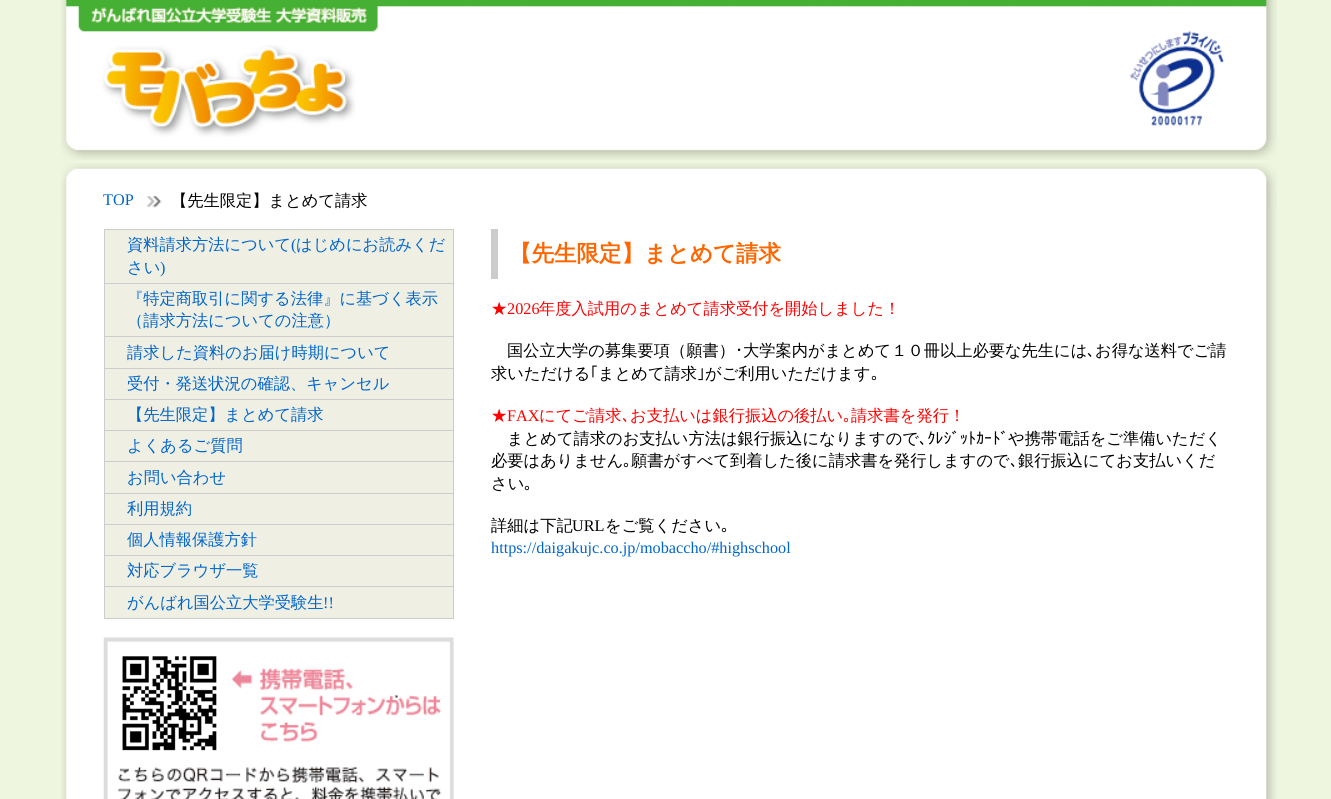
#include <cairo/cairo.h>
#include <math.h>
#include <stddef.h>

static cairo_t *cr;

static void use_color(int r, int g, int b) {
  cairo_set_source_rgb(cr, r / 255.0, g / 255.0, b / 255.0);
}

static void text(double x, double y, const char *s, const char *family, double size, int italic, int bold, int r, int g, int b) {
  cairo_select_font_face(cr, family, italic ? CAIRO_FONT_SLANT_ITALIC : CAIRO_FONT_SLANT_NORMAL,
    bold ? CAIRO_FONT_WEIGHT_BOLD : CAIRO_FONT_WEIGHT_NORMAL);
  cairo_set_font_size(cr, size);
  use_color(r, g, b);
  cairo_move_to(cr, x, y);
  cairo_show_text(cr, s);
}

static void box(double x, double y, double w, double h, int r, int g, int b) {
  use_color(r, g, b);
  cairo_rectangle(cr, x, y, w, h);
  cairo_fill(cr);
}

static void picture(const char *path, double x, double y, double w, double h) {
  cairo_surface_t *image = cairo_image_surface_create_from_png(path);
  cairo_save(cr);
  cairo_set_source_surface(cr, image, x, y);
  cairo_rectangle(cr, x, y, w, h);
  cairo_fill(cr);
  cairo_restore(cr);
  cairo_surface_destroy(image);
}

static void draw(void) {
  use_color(238, 246, 223);
  cairo_paint(cr);
  picture("img_01.png", 61, 0, 1216, 160);
  picture("img_02.png", 102, 45, 254, 92);
  picture("img_03.png", 1129, 31, 96, 95);
  picture("img_04.png", 61, 163, 1216, 47);
  picture("img_05.png", 146, 196, 16, 12);
  picture("img_06.png", 61, 210, 1216, 589);
  box(104, 229, 350, 1, 204, 204, 204);
  box(105, 230, 348, 53, 240, 239, 227);
  box(453, 230, 1, 389, 204, 204, 204);
  box(104, 283, 350, 1, 204, 204, 204);
  box(104, 230, 1, 54, 204, 204, 204);
  box(105, 284, 348, 84, 240, 239, 227);
  box(104, 336, 350, 1, 204, 204, 204);
  box(104, 284, 1, 54, 204, 204, 204);
  box(104, 368, 350, 1, 204, 204, 204);
  box(104, 338, 1, 31, 204, 204, 204);
  box(105, 369, 348, 30, 240, 239, 227);
  box(104, 399, 350, 1, 204, 204, 204);
  box(104, 369, 1, 31, 204, 204, 204);
  box(105, 400, 348, 30, 240, 239, 227);
  box(104, 430, 350, 1, 204, 204, 204);
  box(104, 400, 1, 31, 204, 204, 204);
  box(105, 431, 348, 62, 240, 239, 227);
  box(104, 461, 350, 1, 204, 204, 204);
  box(104, 431, 1, 32, 204, 204, 204);
  box(104, 493, 350, 1, 204, 204, 204);
  box(104, 463, 1, 31, 204, 204, 204);
  box(105, 494, 348, 30, 240, 239, 227);
  box(104, 524, 350, 1, 204, 204, 204);
  box(104, 494, 1, 31, 204, 204, 204);
  box(105, 525, 348, 30, 240, 239, 227);
  box(104, 555, 350, 1, 204, 204, 204);
  box(104, 525, 1, 31, 204, 204, 204);
  box(105, 556, 348, 62, 240, 239, 227);
  box(104, 586, 350, 1, 204, 204, 204);
  box(104, 556, 1, 32, 204, 204, 204);
  box(104, 618, 350, 1, 204, 204, 204);
  box(104, 588, 1, 31, 204, 204, 204);
  picture("img_07.png", 103, 637, 351, 162);
  box(491, 229, 7, 50, 204, 204, 204);
  text(103, 205, "TOP", "Liberation Serif", 16.25, 0, 0, 0, 102, 204);
  text(171, 206, "【先生限定】まとめて請求", "WenQuanYi Zen Hei Medium", 16.25, 0, 0, 0, 0, 0);
  text(127, 250, "資料請求方法について", "WenQuanYi Zen Hei Medium", 16.25, 0, 0, 0, 102, 204);
  text(291, 250, "(", "Liberation Serif", 16.25, 0, 0, 0, 102, 204);
  text(296, 250, "はじめにお読みくだ", "WenQuanYi Zen Hei Medium", 16.25, 0, 0, 0, 102, 204);
  text(127, 273, "さい", "WenQuanYi Zen Hei Medium", 16.25, 0, 0, 0, 102, 204);
  text(160, 273, ")", "Liberation Serif", 16.25, 0, 0, 0, 102, 204);
  text(127, 304, "『特定商取引に関する法律』に基づく表示", "WenQuanYi Zen Hei Medium", 16.25, 0, 0, 0, 102, 204);
  text(127, 326, "（請求方法についての注意）", "WenQuanYi Zen Hei Medium", 16.25, 0, 0, 0, 102, 204);
  text(127, 358, "請求した資料のお届け時期について", "WenQuanYi Zen Hei Medium", 16.25, 0, 0, 0, 102, 204);
  text(127, 389, "受付・発送状況の確認、キャンセル", "WenQuanYi Zen Hei Medium", 16.25, 0, 0, 0, 102, 204);
  text(127, 420, "【先生限定】まとめて請求", "WenQuanYi Zen Hei Medium", 16.25, 0, 0, 0, 102, 204);
  text(127, 451, "よくあるご質問", "WenQuanYi Zen Hei Medium", 16.25, 0, 0, 0, 102, 204);
  text(127, 483, "お問い合わせ", "WenQuanYi Zen Hei Medium", 16.25, 0, 0, 0, 102, 204);
  text(127, 514, "利用規約", "WenQuanYi Zen Hei Medium", 16.25, 0, 0, 0, 102, 204);
  text(127, 545, "個人情報保護方針", "WenQuanYi Zen Hei Medium", 16.25, 0, 0, 0, 102, 204);
  text(127, 576, "対応ブラウザ一覧", "WenQuanYi Zen Hei Medium", 16.25, 0, 0, 0, 102, 204);
  text(127, 608, "がんばれ国公立大学受験生", "WenQuanYi Zen Hei Medium", 16.25, 0, 0, 0, 102, 204);
  text(323, 608, "!!", "Liberation Serif", 16.25, 0, 0, 0, 102, 204);
  text(509, 261, "【先生限定】まとめて請求", "WenQuanYi Zen Hei", 22.5, 0, 1, 255, 102, 0);
  text(491, 314, "★", "WenQuanYi Zen Hei Medium", 16.25, 0, 0, 255, 0, 0);
  text(507, 314, "2026", "Liberation Serif", 16.25, 0, 0, 255, 0, 0);
  text(539, 314, "年度入試用のまとめて請求受付を開始しました！", "WenQuanYi Zen Hei Medium", 16.25, 0, 0, 255, 0, 0);
  text(507, 356, "国公立大学の募集要項（願書）", "WenQuanYi Zen Hei Medium", 16.25, 0, 0, 0, 0, 0);
  text(735, 356, "･", "IPAPGothic", 16.25, 0, 0, 0, 0, 0);
  text(743, 356, "大学案内がまとめて１０冊以上必要な先生には", "WenQuanYi Zen Hei Medium", 16.25, 0, 0, 0, 0, 0);
  text(1095, 356, "お得な送料でご請", "WenQuanYi Zen Hei Medium", 16.25, 0, 0, 0, 0, 0);
  text(1087, 356, "､", "IPAPGothic", 16.25, 0, 0, 0, 0, 0);
  text(491, 379, "求いただける", "WenQuanYi Zen Hei Medium", 16.25, 0, 0, 0, 0, 0);
  text(590, 379, "｢", "IPAPGothic", 16.25, 0, 0, 0, 0, 0);
  text(598, 379, "まとめて請求", "WenQuanYi Zen Hei Medium", 16.25, 0, 0, 0, 0, 0);
  text(697, 379, "｣", "IPAPGothic", 16.25, 0, 0, 0, 0, 0);
  text(705, 379, "がご利用いただけます", "WenQuanYi Zen Hei Medium", 16.25, 0, 0, 0, 0, 0);
  text(871, 379, "｡", "IPAPGothic", 16.25, 0, 0, 0, 0, 0);
  text(491, 421, "★", "WenQuanYi Zen Hei Medium", 16.25, 0, 0, 255, 0, 0);
  text(507, 421, "FAX", "Liberation Serif", 16.25, 0, 0, 255, 0, 0);
  text(539, 421, "にてご請求", "WenQuanYi Zen Hei Medium", 16.25, 0, 0, 255, 0, 0);
  text(622, 421, "､", "IPAPGothic", 16.25, 0, 0, 255, 0, 0);
  text(630, 421, "お支払いは銀行振込の後払い", "WenQuanYi Zen Hei Medium", 16.25, 0, 0, 255, 0, 0);
  text(843, 421, "｡", "IPAPGothic", 16.25, 0, 0, 255, 0, 0);
  text(851, 421, "請求書を発行！", "WenQuanYi Zen Hei Medium", 16.25, 0, 0, 255, 0, 0);
  text(507, 444, "まとめて請求のお支払い方法は銀行振込になりますので", "WenQuanYi Zen Hei Medium", 16.25, 0, 0, 0, 0, 0);
  text(919, 444, "､ｸﾚｼﾞｯﾄｶｰﾄﾞ", "IPAPGothic", 16.25, 0, 0, 0, 0, 0);
  text(1008, 444, "や携帯電話をご準備いただく", "WenQuanYi Zen Hei Medium", 16.25, 0, 0, 0, 0, 0);
  text(491, 466, "必要はありません", "WenQuanYi Zen Hei Medium", 16.25, 0, 0, 0, 0, 0);
  text(623, 466, "｡", "IPAPGothic", 16.25, 0, 0, 0, 0, 0);
  text(631, 466, "願書がすべて到着した後に請求書を発行しますので", "WenQuanYi Zen Hei Medium", 16.25, 0, 0, 0, 0, 0);
  text(1010, 466, "､", "IPAPGothic", 16.25, 0, 0, 0, 0, 0);
  text(1018, 466, "銀行振込にてお支払いくだ", "WenQuanYi Zen Hei Medium", 16.25, 0, 0, 0, 0, 0);
  text(491, 489, "さい", "WenQuanYi Zen Hei Medium", 16.25, 0, 0, 0, 0, 0);
  text(524, 489, "｡", "IPAPGothic", 16.25, 0, 0, 0, 0, 0);
  text(491, 531, "詳細は下記", "WenQuanYi Zen Hei Medium", 16.25, 0, 0, 0, 0, 0);
  text(572, 531, "URL", "Liberation Serif", 16.25, 0, 0, 0, 0, 0);
  text(605, 531, "をご覧ください", "WenQuanYi Zen Hei Medium", 16.25, 0, 0, 0, 0, 0);
  text(721, 531, "｡", "IPAPGothic", 16.25, 0, 0, 0, 0, 0);
  text(491, 553, "https://daigakujc.co.jp/mobaccho/#highschool", "Liberation Serif", 16.25, 0, 0, 0, 102, 204);
}

int main(void) {
  cairo_surface_t *surface = cairo_image_surface_create(CAIRO_FORMAT_RGB24, 1331, 799);
  cr = cairo_create(surface);
  cairo_font_options_t *options = cairo_font_options_create();
  cairo_font_options_set_hint_metrics(options, CAIRO_HINT_METRICS_OFF);
  cairo_font_options_set_hint_style(options, CAIRO_HINT_STYLE_NONE);
  cairo_set_font_options(cr, options);
  cairo_set_miter_limit(cr, 4);
  draw();
  cairo_surface_write_to_png(surface, "out.png");
  cairo_font_options_destroy(options);
  cairo_destroy(cr);
  cairo_surface_destroy(surface);
  return 0;
}
